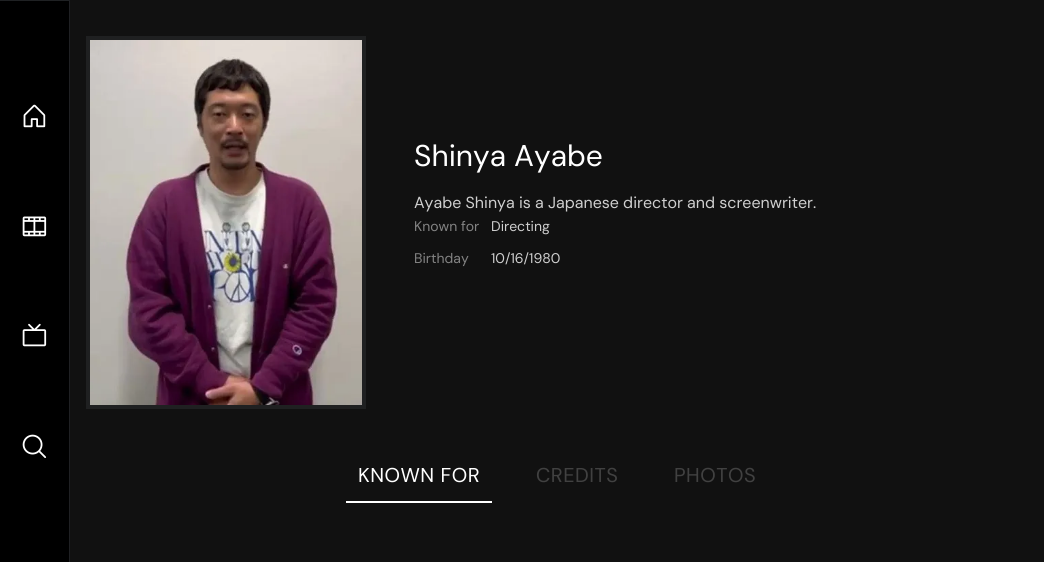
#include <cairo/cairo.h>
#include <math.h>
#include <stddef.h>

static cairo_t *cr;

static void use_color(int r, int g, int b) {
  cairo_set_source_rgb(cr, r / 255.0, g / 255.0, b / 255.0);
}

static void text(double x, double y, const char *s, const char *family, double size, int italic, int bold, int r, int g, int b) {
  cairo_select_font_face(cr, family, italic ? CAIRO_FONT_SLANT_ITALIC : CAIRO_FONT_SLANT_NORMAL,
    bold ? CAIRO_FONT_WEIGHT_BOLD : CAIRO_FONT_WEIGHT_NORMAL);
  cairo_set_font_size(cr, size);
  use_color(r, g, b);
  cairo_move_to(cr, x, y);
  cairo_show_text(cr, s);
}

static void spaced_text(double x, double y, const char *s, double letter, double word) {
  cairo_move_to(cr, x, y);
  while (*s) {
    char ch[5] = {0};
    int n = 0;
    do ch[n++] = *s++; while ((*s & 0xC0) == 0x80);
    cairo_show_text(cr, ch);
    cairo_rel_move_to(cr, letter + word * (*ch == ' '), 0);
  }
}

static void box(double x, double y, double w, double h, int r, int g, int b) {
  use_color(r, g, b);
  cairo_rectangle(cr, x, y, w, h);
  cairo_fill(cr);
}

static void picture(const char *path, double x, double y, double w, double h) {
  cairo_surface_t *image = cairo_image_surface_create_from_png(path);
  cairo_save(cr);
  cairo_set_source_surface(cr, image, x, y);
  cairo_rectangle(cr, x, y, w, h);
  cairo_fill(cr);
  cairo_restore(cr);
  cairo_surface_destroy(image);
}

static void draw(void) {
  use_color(17, 17, 17);
  cairo_paint(cr);
  box(0, 0, 70, 562, 0, 0, 0);
  use_color(31, 33, 35);
  cairo_new_path(cr);
  cairo_move_to(cr, 0, 0);
  cairo_line_to(cr, 70, 0);
  cairo_line_to(cr, 69, 1);
  cairo_line_to(cr, 0, 1);
  cairo_close_path(cr);
  cairo_fill(cr);
  cairo_set_source_rgba(cr, 0.612, 0.639, 0.686, 0.2);
  cairo_new_path(cr);
  cairo_move_to(cr, 70, 0);
  cairo_line_to(cr, 70, 562);
  cairo_line_to(cr, 69, 562);
  cairo_line_to(cr, 69, 1);
  cairo_close_path(cr);
  cairo_fill(cr);
  picture("img_01.png", 23, 104, 23, 24);
  picture("img_02.png", 22, 216, 25, 21);
  picture("img_03.png", 22, 323, 25, 24);
  picture("img_04.png", 22, 434, 25, 24);
  cairo_rectangle(cr, 88, 38, 276, 369);
  use_color(31, 32, 33);
  cairo_set_line_width(cr, 4);
  cairo_stroke(cr);
  picture("img_05.png", 90, 40, 272, 365);
  box(346, 501, 146, 2, 255, 255, 255);
  text(414, 166, "Shinya Ayabe", "DM Sans", 30, 0, 0, 255, 255, 255);
  text(414, 208, "Ayabe Shinya is a Japanese director and screenwriter.", "DM Sans", 16, 0, 0, 207, 207, 207);
  text(414, 231, "Known for", "DM Sans", 14, 0, 0, 131, 131, 131);
  text(491, 231, "Directing", "DM Sans", 14, 0, 0, 207, 207, 207);
  text(414, 263, "Birthday", "DM Sans", 14, 0, 0, 131, 131, 131);
  text(491, 263, "10/16/1980", "DM Sans", 14, 0, 0, 207, 207, 207);
  cairo_set_font_size(cr, 20);
  use_color(255, 255, 255);
  spaced_text(358, 482, "KNOWN FOR", 0.5, 0);
  use_color(65, 65, 65);
  spaced_text(536, 482, "CREDITS", 0.5, 0);
  spaced_text(674, 482, "PHOTOS", 0.5, 0);
}

int main(void) {
  cairo_surface_t *surface = cairo_image_surface_create(CAIRO_FORMAT_RGB24, 1044, 562);
  cr = cairo_create(surface);
  cairo_font_options_t *options = cairo_font_options_create();
  cairo_font_options_set_hint_metrics(options, CAIRO_HINT_METRICS_OFF);
  cairo_font_options_set_hint_style(options, CAIRO_HINT_STYLE_NONE);
  cairo_set_font_options(cr, options);
  cairo_set_miter_limit(cr, 4);
  draw();
  cairo_surface_write_to_png(surface, "out.png");
  cairo_font_options_destroy(options);
  cairo_destroy(cr);
  cairo_surface_destroy(surface);
  return 0;
}
